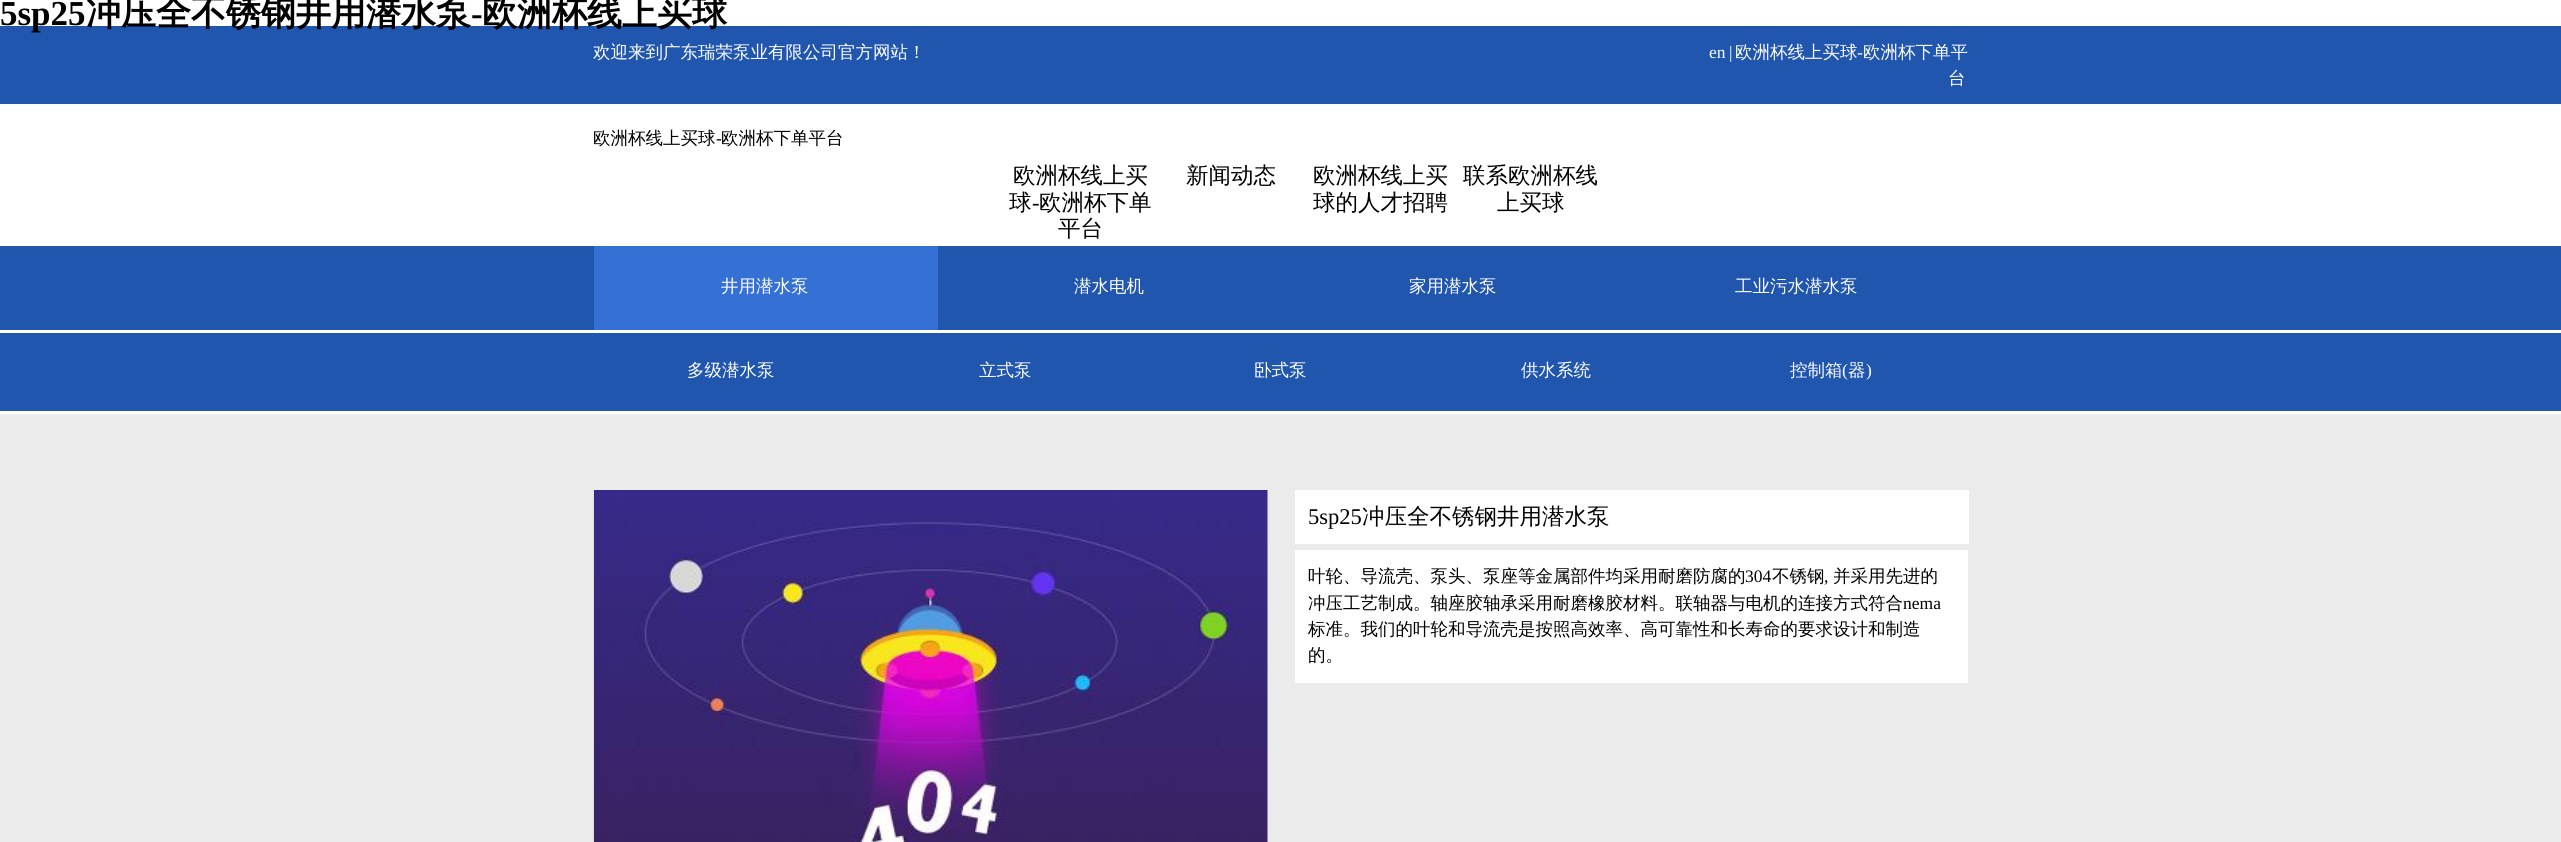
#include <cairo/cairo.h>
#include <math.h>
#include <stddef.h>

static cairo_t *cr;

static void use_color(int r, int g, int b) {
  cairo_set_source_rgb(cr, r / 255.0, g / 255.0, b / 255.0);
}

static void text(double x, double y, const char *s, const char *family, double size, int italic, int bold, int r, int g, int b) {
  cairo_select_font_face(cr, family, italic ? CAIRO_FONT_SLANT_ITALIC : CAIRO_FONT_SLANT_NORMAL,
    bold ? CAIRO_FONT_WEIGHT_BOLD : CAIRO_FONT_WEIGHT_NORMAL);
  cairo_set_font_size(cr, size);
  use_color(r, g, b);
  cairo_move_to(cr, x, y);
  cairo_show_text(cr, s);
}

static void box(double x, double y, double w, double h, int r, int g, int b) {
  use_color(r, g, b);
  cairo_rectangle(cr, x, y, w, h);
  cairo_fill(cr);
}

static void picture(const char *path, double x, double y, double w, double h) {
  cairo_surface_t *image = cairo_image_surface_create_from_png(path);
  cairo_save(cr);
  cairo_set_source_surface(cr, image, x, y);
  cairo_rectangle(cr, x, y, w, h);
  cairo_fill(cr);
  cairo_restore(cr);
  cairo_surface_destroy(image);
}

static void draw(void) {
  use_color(255, 255, 255);
  cairo_paint(cr);
  box(0, 26, 2561, 78, 32, 86, 174);
  box(0, 246, 2561, 84, 32, 86, 174);
  box(594, 246, 344, 84, 53, 112, 212);
  box(0, 333, 2561, 78, 32, 86, 174);
  box(0, 414, 2561, 428, 235, 235, 235);
  picture("img_01.png", 593, 490, 675, 352);
  box(1295, 490, 674, 54, 255, 255, 255);
  box(1295, 550, 673, 133, 255, 255, 255);
  text(0, 25, "5sp25", "Liberation Serif", 35, 0, 1, 0, 0, 0);
  text(86, 25, "冲压全不锈钢井用潜水泵", "WenQuanYi Zen Hei", 35, 0, 1, 0, 0, 0);
  text(471, 25, "-", "Liberation Serif", 35, 0, 1, 0, 0, 0);
  text(482, 25, "欧洲杯线上买球", "WenQuanYi Zen Hei", 35, 0, 1, 0, 0, 0);
  text(593, 58, "欢迎来到广东瑞荣泵业有限公司官方网站！", "WenQuanYi Zen Hei Medium", 17.5, 0, 0, 255, 255, 255);
  text(1709, 58, "en", "Liberation Serif", 17.5, 0, 0, 255, 255, 255);
  text(1729, 58, "|", "Liberation Serif", 17.5, 0, 0, 255, 255, 255);
  text(1735, 58, "欧洲杯线上买球", "WenQuanYi Zen Hei Medium", 17.5, 0, 0, 255, 255, 255);
  text(1857, 58, "-", "Liberation Serif", 17.5, 0, 0, 255, 255, 255);
  text(1863, 58, "欧洲杯下单平", "WenQuanYi Zen Hei Medium", 17.5, 0, 0, 255, 255, 255);
  text(1948, 84, "台", "WenQuanYi Zen Hei Medium", 17.5, 0, 0, 255, 255, 255);
  text(593, 144, "欧洲杯线上买球", "WenQuanYi Zen Hei Medium", 17.5, 0, 0, 0, 0, 0);
  text(716, 144, "-", "Liberation Serif", 17.5, 0, 0, 0, 0, 0);
  text(721, 144, "欧洲杯下单平台", "WenQuanYi Zen Hei Medium", 17.5, 0, 0, 0, 0, 0);
  text(1013, 183, "欧洲杯线上买", "WenQuanYi Zen Hei Medium", 22.5, 0, 0, 0, 0, 0);
  text(1009, 210, "球", "WenQuanYi Zen Hei Medium", 22.5, 0, 0, 0, 0, 0);
  text(1032, 210, "-", "Liberation Serif", 22.5, 0, 0, 0, 0, 0);
  text(1039, 210, "欧洲杯下单", "WenQuanYi Zen Hei Medium", 22.5, 0, 0, 0, 0, 0);
  text(1058, 236, "平台", "WenQuanYi Zen Hei Medium", 22.5, 0, 0, 0, 0, 0);
  text(1186, 183, "新闻动态", "WenQuanYi Zen Hei Medium", 22.5, 0, 0, 0, 0, 0);
  text(1313, 183, "欧洲杯线上买", "WenQuanYi Zen Hei Medium", 22.5, 0, 0, 0, 0, 0);
  text(1313, 210, "球的人才招聘", "WenQuanYi Zen Hei Medium", 22.5, 0, 0, 0, 0, 0);
  text(1463, 183, "联系欧洲杯线", "WenQuanYi Zen Hei Medium", 22.5, 0, 0, 0, 0, 0);
  text(1497, 210, "上买球", "WenQuanYi Zen Hei Medium", 22.5, 0, 0, 0, 0, 0);
  text(721, 292, "井用潜水泵", "WenQuanYi Zen Hei Medium", 17.5, 0, 0, 255, 255, 255);
  text(1074, 292, "潜水电机", "WenQuanYi Zen Hei Medium", 17.5, 0, 0, 255, 255, 255);
  text(1409, 292, "家用潜水泵", "WenQuanYi Zen Hei Medium", 17.5, 0, 0, 255, 255, 255);
  text(1735, 292, "工业污水潜水泵", "WenQuanYi Zen Hei Medium", 17.5, 0, 0, 255, 255, 255);
  text(687, 376, "多级潜水泵", "WenQuanYi Zen Hei Medium", 17.5, 0, 0, 255, 255, 255);
  text(979, 376, "立式泵", "WenQuanYi Zen Hei Medium", 17.5, 0, 0, 255, 255, 255);
  text(1254, 376, "卧式泵", "WenQuanYi Zen Hei Medium", 17.5, 0, 0, 255, 255, 255);
  text(1521, 376, "供水系统", "WenQuanYi Zen Hei Medium", 17.5, 0, 0, 255, 255, 255);
  text(1790, 376, "控制箱", "WenQuanYi Zen Hei Medium", 17.5, 0, 0, 255, 255, 255);
  text(1842, 376, "(", "Liberation Serif", 17.5, 0, 0, 255, 255, 255);
  text(1848, 376, "器", "WenQuanYi Zen Hei Medium", 17.5, 0, 0, 255, 255, 255);
  text(1866, 376, ")", "Liberation Serif", 17.5, 0, 0, 255, 255, 255);
  text(1308, 524, "5sp25", "Liberation Serif", 22.5, 0, 0, 0, 0, 0);
  text(1362, 524, "冲压全不锈钢井用潜水泵", "WenQuanYi Zen Hei Medium", 22.5, 0, 0, 0, 0, 0);
  text(1308, 582, "叶轮、导流壳、泵头、泵座等金属部件均采用耐磨防腐的", "WenQuanYi Zen Hei Medium", 17.5, 0, 0, 0, 0, 0);
  text(1745, 582, "304", "Liberation Serif", 17.5, 0, 0, 0, 0, 0);
  text(1772, 582, "不锈钢", "WenQuanYi Zen Hei Medium", 17.5, 0, 0, 0, 0, 0);
  text(1824, 582, ",", "Liberation Serif", 17.5, 0, 0, 0, 0, 0);
  text(1833, 582, "并采用先进的", "WenQuanYi Zen Hei Medium", 17.5, 0, 0, 0, 0, 0);
  text(1308, 609, "冲压工艺制成。轴座胶轴承采用耐磨橡胶材料。联轴器与电机的连接方式符合", "WenQuanYi Zen Hei Medium", 17.5, 0, 0, 0, 0, 0);
  text(1903, 609, "nema", "Liberation Serif", 17.5, 0, 0, 0, 0, 0);
  text(1308, 635, "标准。我们的叶轮和导流壳是按照高效率、高可靠性和长寿命的要求设计和制造", "WenQuanYi Zen Hei Medium", 17.5, 0, 0, 0, 0, 0);
  text(1308, 661, "的。", "WenQuanYi Zen Hei Medium", 17.5, 0, 0, 0, 0, 0);
}

int main(void) {
  cairo_surface_t *surface = cairo_image_surface_create(CAIRO_FORMAT_RGB24, 2561, 842);
  cr = cairo_create(surface);
  cairo_font_options_t *options = cairo_font_options_create();
  cairo_font_options_set_hint_metrics(options, CAIRO_HINT_METRICS_OFF);
  cairo_font_options_set_hint_style(options, CAIRO_HINT_STYLE_NONE);
  cairo_set_font_options(cr, options);
  cairo_set_miter_limit(cr, 4);
  draw();
  cairo_surface_write_to_png(surface, "out.png");
  cairo_font_options_destroy(options);
  cairo_destroy(cr);
  cairo_surface_destroy(surface);
  return 0;
}
